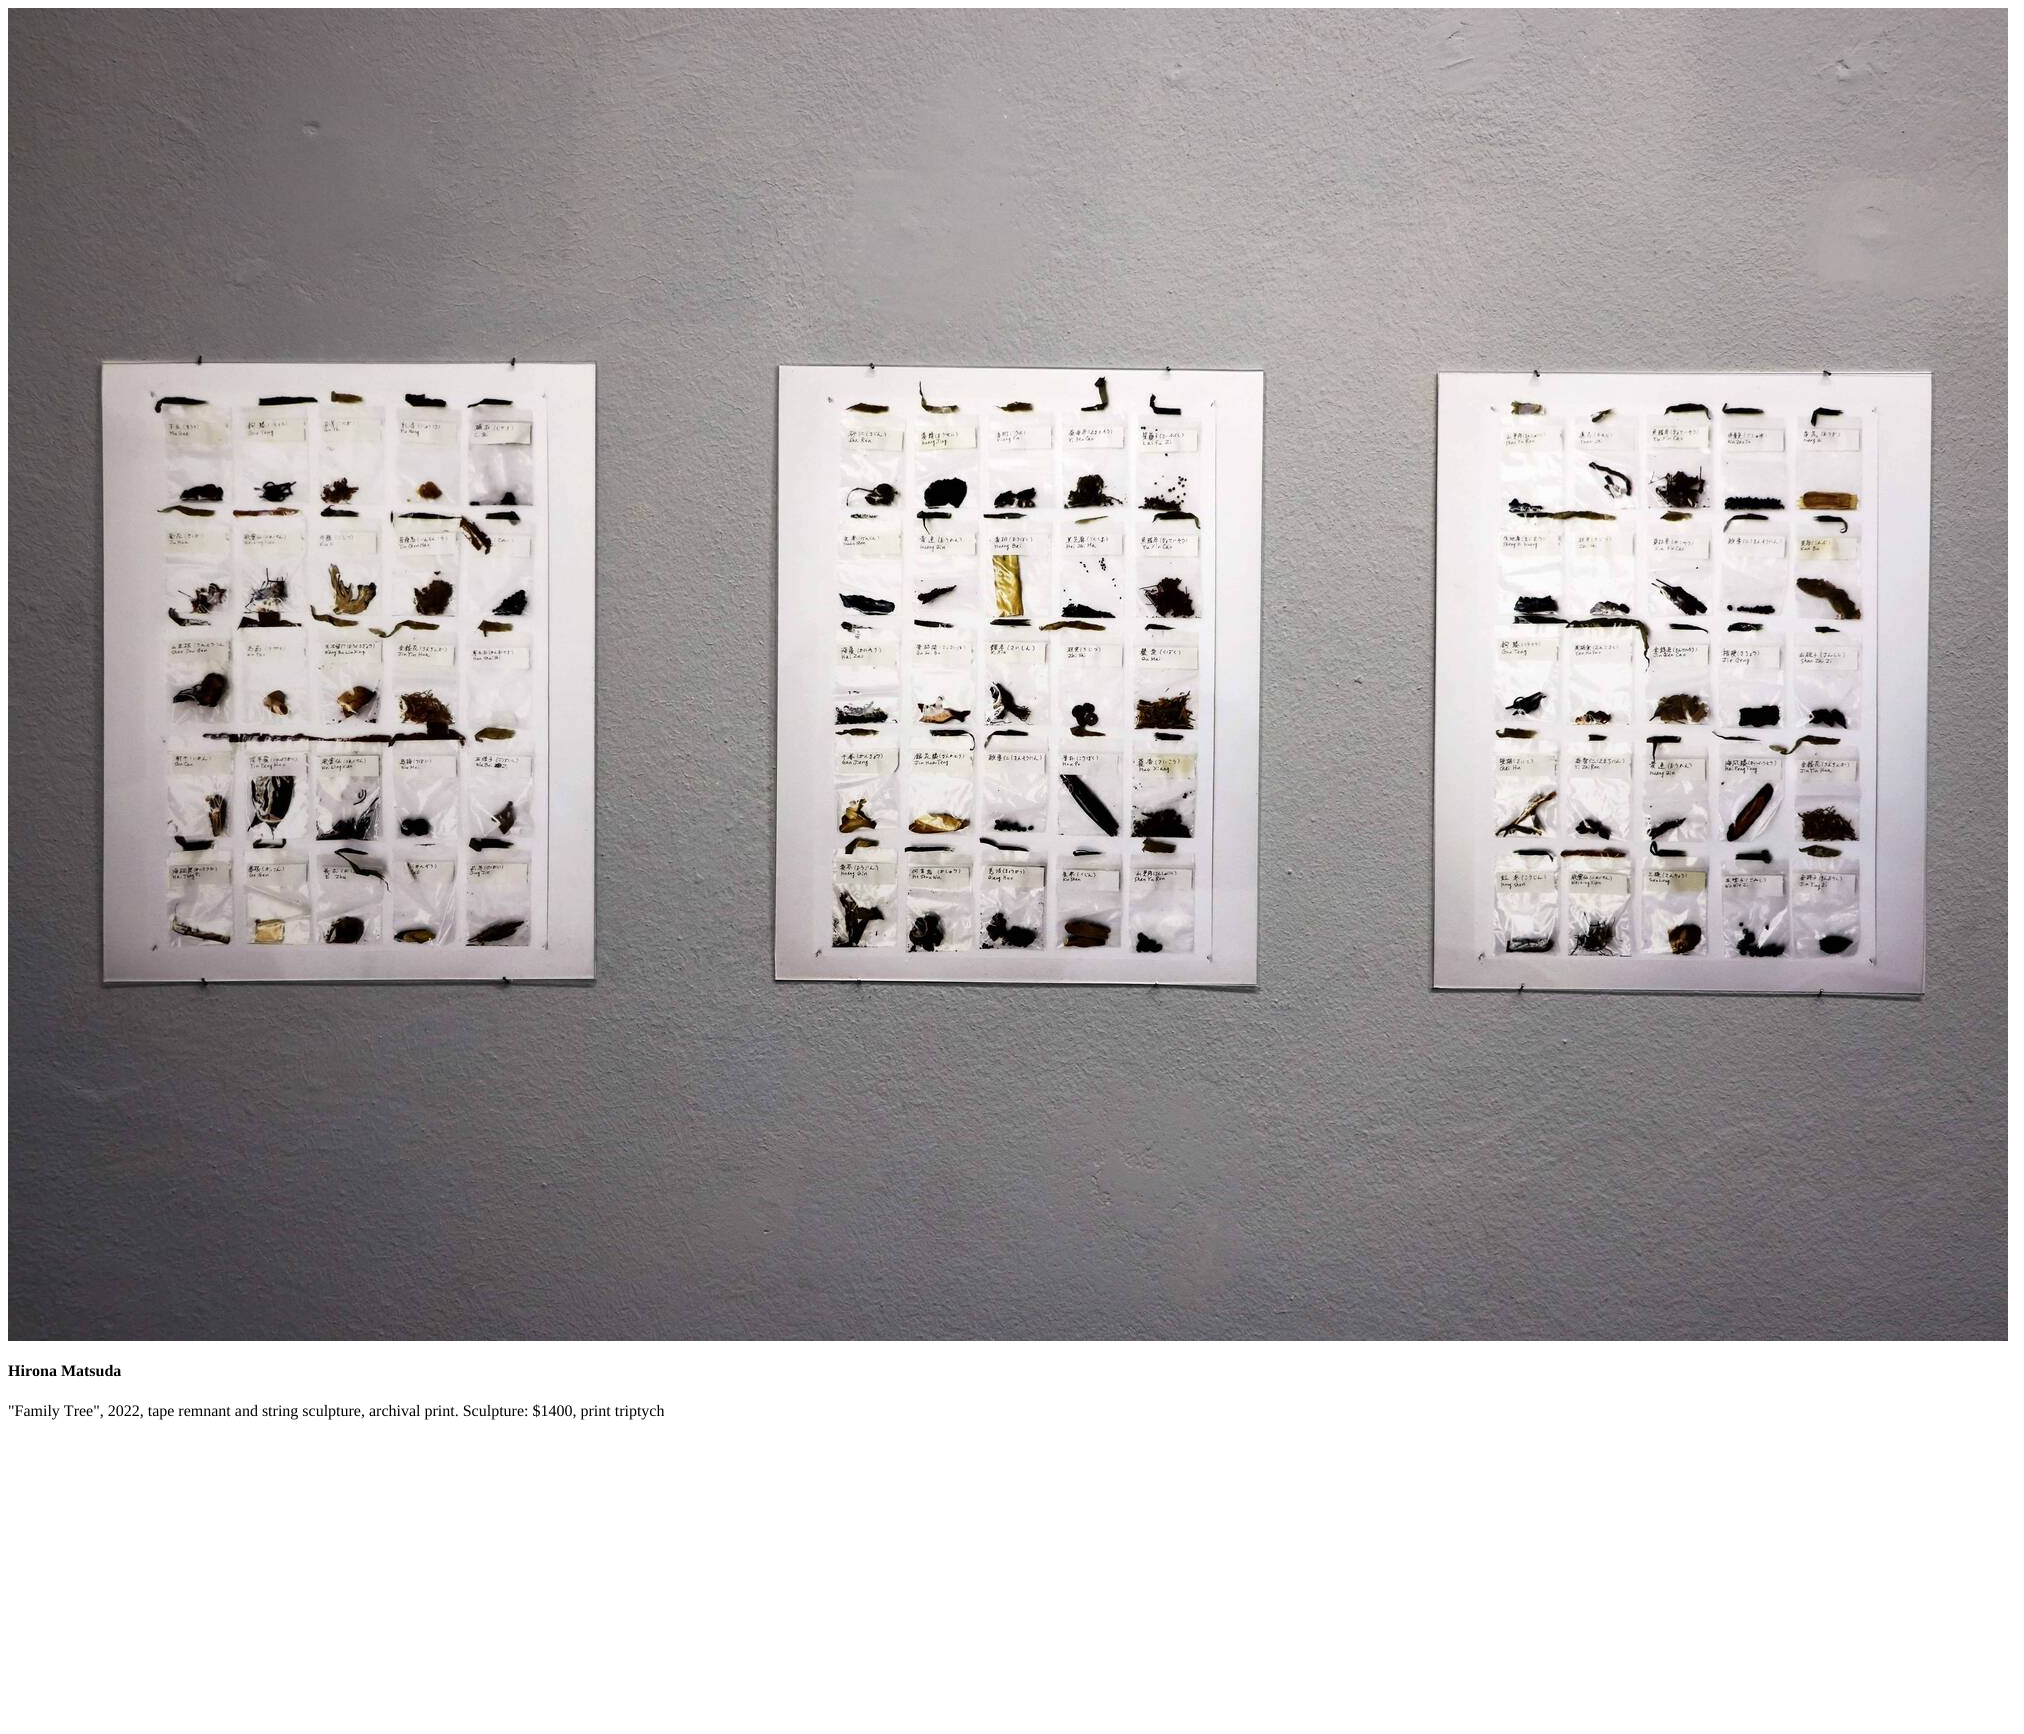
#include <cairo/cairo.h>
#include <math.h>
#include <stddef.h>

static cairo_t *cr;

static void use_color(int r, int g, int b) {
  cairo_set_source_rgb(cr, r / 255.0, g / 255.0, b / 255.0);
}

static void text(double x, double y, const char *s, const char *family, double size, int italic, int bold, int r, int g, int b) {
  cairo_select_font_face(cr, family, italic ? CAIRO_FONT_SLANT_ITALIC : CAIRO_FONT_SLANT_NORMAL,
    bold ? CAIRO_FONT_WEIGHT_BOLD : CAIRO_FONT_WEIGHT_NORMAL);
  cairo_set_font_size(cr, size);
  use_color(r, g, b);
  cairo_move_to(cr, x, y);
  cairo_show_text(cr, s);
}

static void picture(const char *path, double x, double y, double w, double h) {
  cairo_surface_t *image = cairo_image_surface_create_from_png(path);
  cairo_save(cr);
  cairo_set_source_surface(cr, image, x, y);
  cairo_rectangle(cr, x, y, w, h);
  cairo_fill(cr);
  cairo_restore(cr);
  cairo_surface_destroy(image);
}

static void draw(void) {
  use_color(255, 255, 255);
  cairo_paint(cr);
  picture("img_01.png", 8, 8, 2000, 1333);
  text(8, 1376, "Hirona Matsuda", "Liberation Serif", 16, 0, 1, 0, 0, 0);
  text(8, 1416, "\"Family Tree\", 2022, tape remnant and string sculpture, archival print. Sculpture: $1400, print triptych", "Liberation Serif", 16, 0, 0, 0, 0, 0);
}

int main(void) {
  cairo_surface_t *surface = cairo_image_surface_create(CAIRO_FORMAT_RGB24, 2024, 1734);
  cr = cairo_create(surface);
  cairo_font_options_t *options = cairo_font_options_create();
  cairo_font_options_set_hint_metrics(options, CAIRO_HINT_METRICS_OFF);
  cairo_font_options_set_hint_style(options, CAIRO_HINT_STYLE_NONE);
  cairo_set_font_options(cr, options);
  cairo_set_miter_limit(cr, 4);
  draw();
  cairo_surface_write_to_png(surface, "out.png");
  cairo_font_options_destroy(options);
  cairo_destroy(cr);
  cairo_surface_destroy(surface);
  return 0;
}
